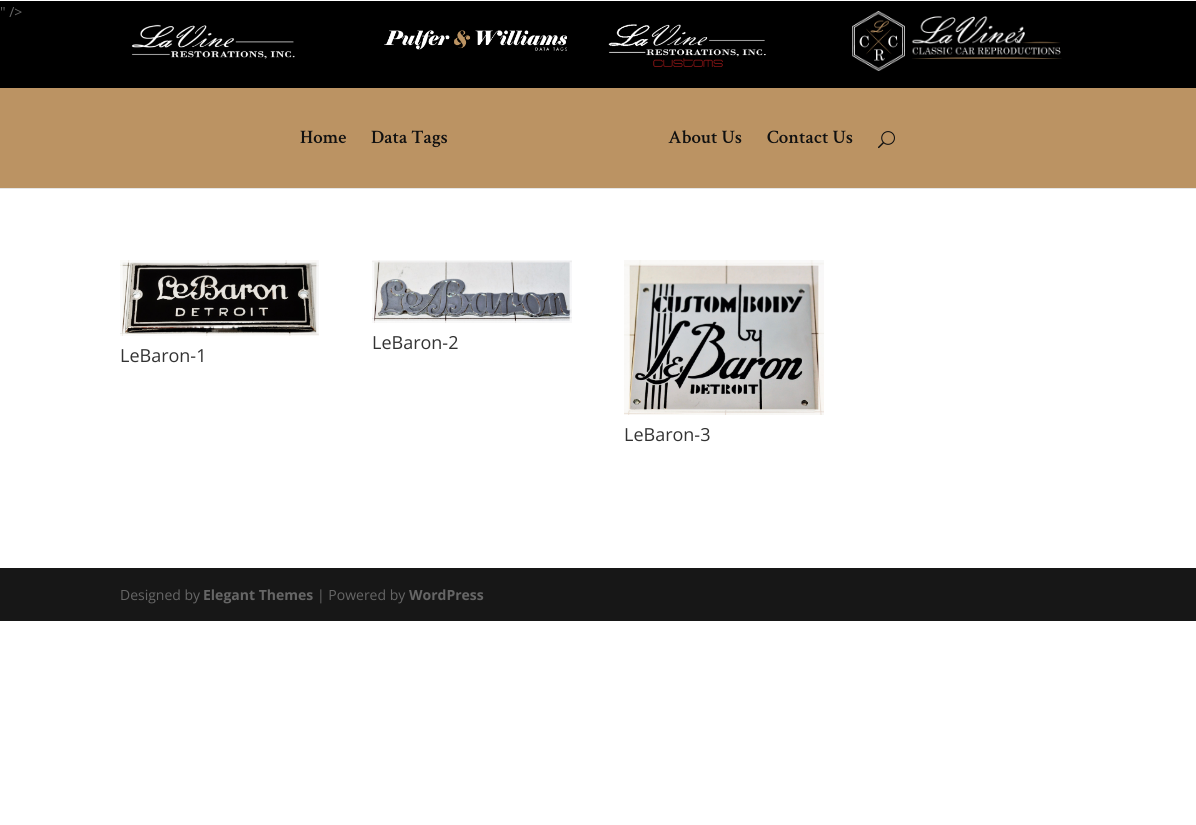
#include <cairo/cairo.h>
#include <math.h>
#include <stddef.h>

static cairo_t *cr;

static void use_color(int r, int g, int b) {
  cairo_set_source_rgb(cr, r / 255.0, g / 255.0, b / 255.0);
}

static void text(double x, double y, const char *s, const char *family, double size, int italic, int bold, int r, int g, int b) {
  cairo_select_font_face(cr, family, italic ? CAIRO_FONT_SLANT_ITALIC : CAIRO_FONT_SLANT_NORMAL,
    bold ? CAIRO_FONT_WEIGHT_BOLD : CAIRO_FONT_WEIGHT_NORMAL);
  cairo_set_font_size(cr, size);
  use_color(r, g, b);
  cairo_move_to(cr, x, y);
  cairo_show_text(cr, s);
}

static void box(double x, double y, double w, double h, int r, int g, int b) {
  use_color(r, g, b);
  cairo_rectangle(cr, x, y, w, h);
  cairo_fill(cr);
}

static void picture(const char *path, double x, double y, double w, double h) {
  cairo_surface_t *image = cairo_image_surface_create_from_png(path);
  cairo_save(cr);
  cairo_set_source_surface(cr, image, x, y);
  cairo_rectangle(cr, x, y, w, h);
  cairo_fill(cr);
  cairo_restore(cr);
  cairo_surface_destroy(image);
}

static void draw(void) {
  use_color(255, 255, 255);
  cairo_paint(cr);
  box(0, 1, 1196, 87, 0, 0, 0);
  picture("img_01.png", 131, 24, 164, 35);
  picture("img_02.png", 384, 30, 183, 21);
  picture("img_03.png", 608, 24, 158, 43);
  picture("img_04.png", 852, 11, 210, 60);
  box(0, 188, 1196, 1, 230, 230, 230);
  box(0, 88, 1196, 100, 187, 147, 99);
  picture("img_05.png", 878, 131, 17, 18);
  picture("img_06.png", 372, 260, 200, 63);
  picture("img_07.png", 120, 260, 199, 76);
  picture("img_08.png", 624, 260, 200, 155);
  box(0, 568, 1196, 53, 23, 23, 23);
  text(0, 17, "\" />", "Open Sans", 14, 0, 0, 102, 102, 102);
  text(300, 143, "Home", "Crimson Text SemiBold", 19, 0, 0, 16, 16, 16);
  text(371, 143, "Data Tags", "Crimson Text SemiBold", 19, 0, 0, 16, 16, 16);
  text(668, 143, "About Us", "Crimson Text SemiBold", 19, 0, 0, 16, 16, 16);
  text(767, 143, "Contact Us", "Crimson Text SemiBold", 19, 0, 0, 16, 16, 16);
  text(372, 349, "LeBaron-2", "Open Sans", 18, 0, 0, 51, 51, 51);
  text(120, 362, "LeBaron-1", "Open Sans", 18, 0, 0, 51, 51, 51);
  text(624, 441, "LeBaron-3", "Open Sans", 18, 0, 0, 51, 51, 51);
  text(120, 600, "Designed by", "Open Sans", 14, 0, 0, 102, 102, 102);
  text(203, 600, "Elegant Themes", "Open Sans", 14, 0, 1, 102, 102, 102);
  text(317, 600, "| Powered by", "Open Sans", 14, 0, 0, 102, 102, 102);
  text(409, 600, "WordPress", "Open Sans", 14, 0, 1, 102, 102, 102);
}

int main(void) {
  cairo_surface_t *surface = cairo_image_surface_create(CAIRO_FORMAT_RGB24, 1196, 825);
  cr = cairo_create(surface);
  cairo_font_options_t *options = cairo_font_options_create();
  cairo_font_options_set_hint_metrics(options, CAIRO_HINT_METRICS_OFF);
  cairo_font_options_set_hint_style(options, CAIRO_HINT_STYLE_NONE);
  cairo_set_font_options(cr, options);
  cairo_set_miter_limit(cr, 4);
  draw();
  cairo_surface_write_to_png(surface, "out.png");
  cairo_font_options_destroy(options);
  cairo_destroy(cr);
  cairo_surface_destroy(surface);
  return 0;
}
